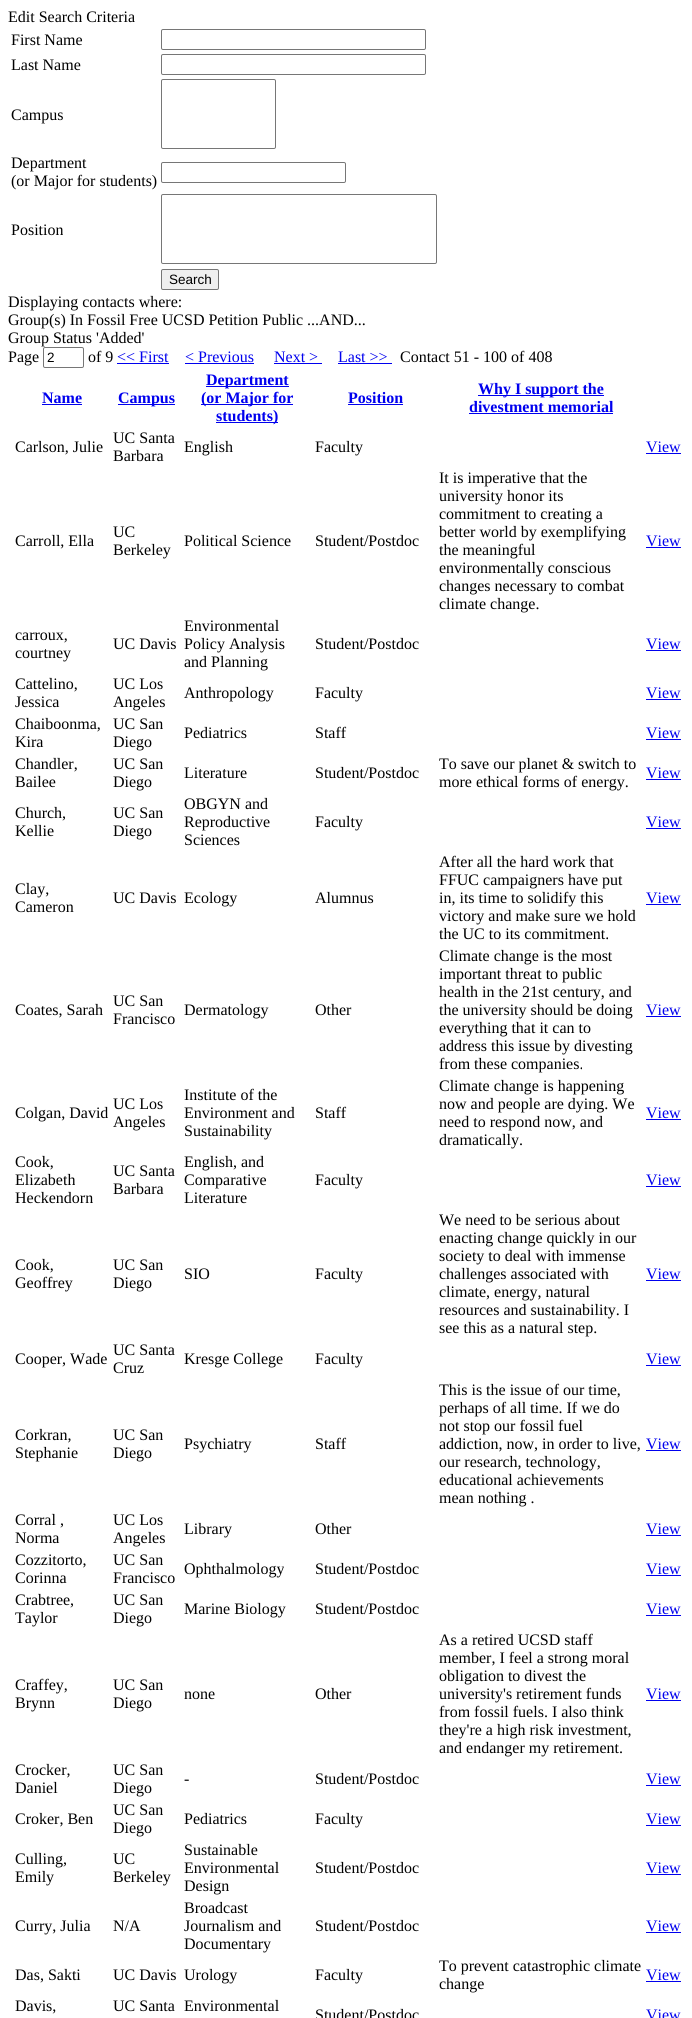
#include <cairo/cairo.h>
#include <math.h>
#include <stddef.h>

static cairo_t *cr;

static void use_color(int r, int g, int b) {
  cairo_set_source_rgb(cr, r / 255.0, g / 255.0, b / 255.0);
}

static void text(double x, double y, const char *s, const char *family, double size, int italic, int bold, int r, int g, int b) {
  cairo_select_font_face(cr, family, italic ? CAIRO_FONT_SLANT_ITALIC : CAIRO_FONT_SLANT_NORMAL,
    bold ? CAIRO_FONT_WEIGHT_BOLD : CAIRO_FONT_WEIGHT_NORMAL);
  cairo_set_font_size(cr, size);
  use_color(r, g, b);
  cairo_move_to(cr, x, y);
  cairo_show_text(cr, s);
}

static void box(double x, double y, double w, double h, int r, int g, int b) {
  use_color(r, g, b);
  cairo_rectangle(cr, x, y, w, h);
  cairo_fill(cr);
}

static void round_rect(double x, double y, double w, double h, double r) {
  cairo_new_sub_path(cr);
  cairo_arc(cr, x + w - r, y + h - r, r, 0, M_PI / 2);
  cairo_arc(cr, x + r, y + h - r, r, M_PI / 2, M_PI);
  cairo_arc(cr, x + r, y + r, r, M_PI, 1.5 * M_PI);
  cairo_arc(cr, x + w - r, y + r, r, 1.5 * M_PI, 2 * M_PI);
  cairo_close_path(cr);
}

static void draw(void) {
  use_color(255, 255, 255);
  cairo_paint(cr);
  round_rect(161.5, 29.5, 264, 20, 1.5);
  use_color(118, 118, 118);
  cairo_set_line_width(cr, 1);
  cairo_stroke(cr);
  round_rect(161.5, 54.5, 264, 20, 1.5);
  cairo_stroke(cr);
  round_rect(161.5, 79.5, 114, 69, 1.5);
  cairo_stroke(cr);
  round_rect(161.5, 162.5, 184, 20, 1.5);
  cairo_stroke(cr);
  round_rect(161.5, 194.5, 275, 69, 1.5);
  cairo_stroke(cr);
  use_color(239, 239, 239);
  round_rect(161.5, 269.5, 57, 20, 1.5);
  cairo_fill_preserve(cr);
  use_color(118, 118, 118);
  cairo_stroke(cr);
  round_rect(43.5, 347.5, 40, 20, 1.5);
  cairo_stroke(cr);
  box(117, 363, 52, 1, 0, 0, 238);
  box(185, 363, 69, 1, 0, 0, 238);
  box(274, 363, 48, 1, 0, 0, 238);
  box(338, 363, 54, 1, 0, 0, 238);
  box(42, 404, 40, 1, 0, 0, 238);
  box(118, 404, 57, 1, 0, 0, 238);
  box(206, 386, 83, 1, 0, 0, 238);
  box(201, 404, 92, 1, 0, 0, 238);
  box(216, 422, 62, 1, 0, 0, 238);
  box(348, 404, 55, 1, 0, 0, 238);
  box(478, 395, 126, 1, 0, 0, 238);
  box(469, 413, 144, 1, 0, 0, 238);
  box(646, 453, 35, 1, 0, 0, 238);
  box(646, 547, 35, 1, 0, 0, 238);
  box(646, 650, 35, 1, 0, 0, 238);
  box(646, 699, 35, 1, 0, 0, 238);
  box(646, 739, 35, 1, 0, 0, 238);
  box(646, 779, 35, 1, 0, 0, 238);
  box(646, 828, 35, 1, 0, 0, 238);
  box(646, 904, 35, 1, 0, 0, 238);
  box(646, 1016, 35, 1, 0, 0, 238);
  box(646, 1119, 35, 1, 0, 0, 238);
  box(646, 1186, 35, 1, 0, 0, 238);
  box(646, 1280, 35, 1, 0, 0, 238);
  box(646, 1365, 35, 1, 0, 0, 238);
  box(646, 1450, 35, 1, 0, 0, 238);
  box(646, 1535, 35, 1, 0, 0, 238);
  box(646, 1575, 35, 1, 0, 0, 238);
  box(646, 1615, 35, 1, 0, 0, 238);
  box(646, 1700, 35, 1, 0, 0, 238);
  box(646, 1785, 35, 1, 0, 0, 238);
  box(646, 1825, 35, 1, 0, 0, 238);
  box(646, 1874, 35, 1, 0, 0, 238);
  box(646, 1932, 35, 1, 0, 0, 238);
  box(646, 1981, 35, 1, 0, 0, 238);
  text(8, 22, "Edit Search Criteria", "Liberation Serif", 16, 0, 0, 0, 0, 0);
  text(11, 45, "First Name", "Liberation Serif", 16, 0, 0, 0, 0, 0);
  text(11, 70, "Last Name", "Liberation Serif", 16, 0, 0, 0, 0, 0);
  text(11, 120, "Campus", "Liberation Serif", 16, 0, 0, 0, 0, 0);
  text(11, 168, "Department", "Liberation Serif", 16, 0, 0, 0, 0, 0);
  text(11, 186, "(or Major for students)", "Liberation Serif", 16, 0, 0, 0, 0, 0);
  text(11, 235, "Position", "Liberation Serif", 16, 0, 0, 0, 0, 0);
  text(169, 284, "Search", "Liberation Sans", 13.5, 0, 0, 0, 0, 0);
  text(8, 307, "Displaying contacts where:", "Liberation Serif", 16, 0, 0, 0, 0, 0);
  text(8, 325, "Group(s) In Fossil Free UCSD Petition Public ...AND...", "Liberation Serif", 16, 0, 0, 0, 0, 0);
  text(8, 343, "Group Status 'Added'", "Liberation Serif", 16, 0, 0, 0, 0, 0);
  text(8, 362, "Page", "Liberation Serif", 16, 0, 0, 0, 0, 0);
  text(47, 362, "2", "Liberation Sans", 13.5, 0, 0, 0, 0, 0);
  text(88, 362, "of 9", "Liberation Serif", 16, 0, 0, 0, 0, 0);
  text(117, 362, "<< First", "Liberation Serif", 16, 0, 0, 0, 0, 238);
  text(185, 362, "< Previous", "Liberation Serif", 16, 0, 0, 0, 0, 238);
  text(274, 362, "Next >", "Liberation Serif", 16, 0, 0, 0, 0, 238);
  text(338, 362, "Last >>", "Liberation Serif", 16, 0, 0, 0, 0, 238);
  text(400, 362, "Contact 51 - 100 of 408", "Liberation Serif", 16, 0, 0, 0, 0, 0);
  text(42, 403, "Name", "Liberation Serif", 16, 0, 1, 0, 0, 238);
  text(118, 403, "Campus", "Liberation Serif", 16, 0, 1, 0, 0, 238);
  text(206, 385, "Department", "Liberation Serif", 16, 0, 1, 0, 0, 238);
  text(201, 403, "(or Major for", "Liberation Serif", 16, 0, 1, 0, 0, 238);
  text(216, 421, "students)", "Liberation Serif", 16, 0, 1, 0, 0, 238);
  text(348, 403, "Position", "Liberation Serif", 16, 0, 1, 0, 0, 238);
  text(478, 394, "Why I support the", "Liberation Serif", 16, 0, 1, 0, 0, 238);
  text(469, 412, "divestment memorial", "Liberation Serif", 16, 0, 1, 0, 0, 238);
  text(15, 452, "Carlson, Julie", "Liberation Serif", 16, 0, 0, 0, 0, 0);
  text(113, 443, "UC Santa", "Liberation Serif", 16, 0, 0, 0, 0, 0);
  text(113, 461, "Barbara", "Liberation Serif", 16, 0, 0, 0, 0, 0);
  text(184, 452, "English", "Liberation Serif", 16, 0, 0, 0, 0, 0);
  text(315, 452, "Faculty", "Liberation Serif", 16, 0, 0, 0, 0, 0);
  text(646, 452, "View", "Liberation Serif", 16, 0, 0, 0, 0, 238);
  text(15, 546, "Carroll, Ella", "Liberation Serif", 16, 0, 0, 0, 0, 0);
  text(113, 537, "UC", "Liberation Serif", 16, 0, 0, 0, 0, 0);
  text(113, 555, "Berkeley", "Liberation Serif", 16, 0, 0, 0, 0, 0);
  text(184, 546, "Political Science", "Liberation Serif", 16, 0, 0, 0, 0, 0);
  text(315, 546, "Student/Postdoc", "Liberation Serif", 16, 0, 0, 0, 0, 0);
  text(439, 483, "It is imperative that the", "Liberation Serif", 16, 0, 0, 0, 0, 0);
  text(439, 501, "university honor its", "Liberation Serif", 16, 0, 0, 0, 0, 0);
  text(439, 519, "commitment to creating a", "Liberation Serif", 16, 0, 0, 0, 0, 0);
  text(439, 537, "better world by exemplifying", "Liberation Serif", 16, 0, 0, 0, 0, 0);
  text(439, 555, "the meaningful", "Liberation Serif", 16, 0, 0, 0, 0, 0);
  text(439, 573, "environmentally conscious", "Liberation Serif", 16, 0, 0, 0, 0, 0);
  text(439, 591, "changes necessary to combat", "Liberation Serif", 16, 0, 0, 0, 0, 0);
  text(439, 609, "climate change.", "Liberation Serif", 16, 0, 0, 0, 0, 0);
  text(646, 546, "View", "Liberation Serif", 16, 0, 0, 0, 0, 238);
  text(15, 640, "carroux,", "Liberation Serif", 16, 0, 0, 0, 0, 0);
  text(15, 658, "courtney", "Liberation Serif", 16, 0, 0, 0, 0, 0);
  text(113, 649, "UC Davis", "Liberation Serif", 16, 0, 0, 0, 0, 0);
  text(184, 631, "Environmental", "Liberation Serif", 16, 0, 0, 0, 0, 0);
  text(184, 649, "Policy Analysis", "Liberation Serif", 16, 0, 0, 0, 0, 0);
  text(184, 667, "and Planning", "Liberation Serif", 16, 0, 0, 0, 0, 0);
  text(315, 649, "Student/Postdoc", "Liberation Serif", 16, 0, 0, 0, 0, 0);
  text(646, 649, "View", "Liberation Serif", 16, 0, 0, 0, 0, 238);
  text(15, 689, "Cattelino,", "Liberation Serif", 16, 0, 0, 0, 0, 0);
  text(15, 707, "Jessica", "Liberation Serif", 16, 0, 0, 0, 0, 0);
  text(113, 689, "UC Los", "Liberation Serif", 16, 0, 0, 0, 0, 0);
  text(113, 707, "Angeles", "Liberation Serif", 16, 0, 0, 0, 0, 0);
  text(184, 698, "Anthropology", "Liberation Serif", 16, 0, 0, 0, 0, 0);
  text(315, 698, "Faculty", "Liberation Serif", 16, 0, 0, 0, 0, 0);
  text(646, 698, "View", "Liberation Serif", 16, 0, 0, 0, 0, 238);
  text(15, 729, "Chaiboonma,", "Liberation Serif", 16, 0, 0, 0, 0, 0);
  text(15, 747, "Kira", "Liberation Serif", 16, 0, 0, 0, 0, 0);
  text(113, 729, "UC San", "Liberation Serif", 16, 0, 0, 0, 0, 0);
  text(113, 747, "Diego", "Liberation Serif", 16, 0, 0, 0, 0, 0);
  text(184, 738, "Pediatrics", "Liberation Serif", 16, 0, 0, 0, 0, 0);
  text(315, 738, "Staff", "Liberation Serif", 16, 0, 0, 0, 0, 0);
  text(646, 738, "View", "Liberation Serif", 16, 0, 0, 0, 0, 238);
  text(15, 769, "Chandler,", "Liberation Serif", 16, 0, 0, 0, 0, 0);
  text(15, 787, "Bailee", "Liberation Serif", 16, 0, 0, 0, 0, 0);
  text(113, 769, "UC San", "Liberation Serif", 16, 0, 0, 0, 0, 0);
  text(113, 787, "Diego", "Liberation Serif", 16, 0, 0, 0, 0, 0);
  text(184, 778, "Literature", "Liberation Serif", 16, 0, 0, 0, 0, 0);
  text(315, 778, "Student/Postdoc", "Liberation Serif", 16, 0, 0, 0, 0, 0);
  text(439, 769, "To save our planet & switch to", "Liberation Serif", 16, 0, 0, 0, 0, 0);
  text(439, 787, "more ethical forms of energy.", "Liberation Serif", 16, 0, 0, 0, 0, 0);
  text(646, 778, "View", "Liberation Serif", 16, 0, 0, 0, 0, 238);
  text(15, 818, "Church,", "Liberation Serif", 16, 0, 0, 0, 0, 0);
  text(15, 836, "Kellie", "Liberation Serif", 16, 0, 0, 0, 0, 0);
  text(113, 818, "UC San", "Liberation Serif", 16, 0, 0, 0, 0, 0);
  text(113, 836, "Diego", "Liberation Serif", 16, 0, 0, 0, 0, 0);
  text(184, 809, "OBGYN and", "Liberation Serif", 16, 0, 0, 0, 0, 0);
  text(184, 827, "Reproductive", "Liberation Serif", 16, 0, 0, 0, 0, 0);
  text(184, 845, "Sciences", "Liberation Serif", 16, 0, 0, 0, 0, 0);
  text(315, 827, "Faculty", "Liberation Serif", 16, 0, 0, 0, 0, 0);
  text(646, 827, "View", "Liberation Serif", 16, 0, 0, 0, 0, 238);
  text(15, 894, "Clay,", "Liberation Serif", 16, 0, 0, 0, 0, 0);
  text(15, 912, "Cameron", "Liberation Serif", 16, 0, 0, 0, 0, 0);
  text(113, 903, "UC Davis", "Liberation Serif", 16, 0, 0, 0, 0, 0);
  text(184, 903, "Ecology", "Liberation Serif", 16, 0, 0, 0, 0, 0);
  text(315, 903, "Alumnus", "Liberation Serif", 16, 0, 0, 0, 0, 0);
  text(439, 867, "After all the hard work that", "Liberation Serif", 16, 0, 0, 0, 0, 0);
  text(439, 885, "FFUC campaigners have put", "Liberation Serif", 16, 0, 0, 0, 0, 0);
  text(439, 903, "in, its time to solidify this", "Liberation Serif", 16, 0, 0, 0, 0, 0);
  text(439, 921, "victory and make sure we hold", "Liberation Serif", 16, 0, 0, 0, 0, 0);
  text(439, 939, "the UC to its commitment.", "Liberation Serif", 16, 0, 0, 0, 0, 0);
  text(646, 903, "View", "Liberation Serif", 16, 0, 0, 0, 0, 238);
  text(15, 1015, "Coates, Sarah", "Liberation Serif", 16, 0, 0, 0, 0, 0);
  text(113, 1006, "UC San", "Liberation Serif", 16, 0, 0, 0, 0, 0);
  text(113, 1024, "Francisco", "Liberation Serif", 16, 0, 0, 0, 0, 0);
  text(184, 1015, "Dermatology", "Liberation Serif", 16, 0, 0, 0, 0, 0);
  text(315, 1015, "Other", "Liberation Serif", 16, 0, 0, 0, 0, 0);
  text(439, 961, "Climate change is the most", "Liberation Serif", 16, 0, 0, 0, 0, 0);
  text(439, 979, "important threat to public", "Liberation Serif", 16, 0, 0, 0, 0, 0);
  text(439, 997, "health in the 21st century, and", "Liberation Serif", 16, 0, 0, 0, 0, 0);
  text(439, 1015, "the university should be doing", "Liberation Serif", 16, 0, 0, 0, 0, 0);
  text(439, 1033, "everything that it can to", "Liberation Serif", 16, 0, 0, 0, 0, 0);
  text(439, 1051, "address this issue by divesting", "Liberation Serif", 16, 0, 0, 0, 0, 0);
  text(439, 1069, "from these companies.", "Liberation Serif", 16, 0, 0, 0, 0, 0);
  text(646, 1015, "View", "Liberation Serif", 16, 0, 0, 0, 0, 238);
  text(15, 1118, "Colgan, David", "Liberation Serif", 16, 0, 0, 0, 0, 0);
  text(113, 1109, "UC Los", "Liberation Serif", 16, 0, 0, 0, 0, 0);
  text(113, 1127, "Angeles", "Liberation Serif", 16, 0, 0, 0, 0, 0);
  text(184, 1100, "Institute of the", "Liberation Serif", 16, 0, 0, 0, 0, 0);
  text(184, 1118, "Environment and", "Liberation Serif", 16, 0, 0, 0, 0, 0);
  text(184, 1136, "Sustainability", "Liberation Serif", 16, 0, 0, 0, 0, 0);
  text(315, 1118, "Staff", "Liberation Serif", 16, 0, 0, 0, 0, 0);
  text(439, 1091, "Climate change is happening", "Liberation Serif", 16, 0, 0, 0, 0, 0);
  text(439, 1109, "now and people are dying. We", "Liberation Serif", 16, 0, 0, 0, 0, 0);
  text(439, 1127, "need to respond now, and", "Liberation Serif", 16, 0, 0, 0, 0, 0);
  text(439, 1145, "dramatically.", "Liberation Serif", 16, 0, 0, 0, 0, 0);
  text(646, 1118, "View", "Liberation Serif", 16, 0, 0, 0, 0, 238);
  text(15, 1167, "Cook,", "Liberation Serif", 16, 0, 0, 0, 0, 0);
  text(15, 1185, "Elizabeth", "Liberation Serif", 16, 0, 0, 0, 0, 0);
  text(15, 1203, "Heckendorn", "Liberation Serif", 16, 0, 0, 0, 0, 0);
  text(113, 1176, "UC Santa", "Liberation Serif", 16, 0, 0, 0, 0, 0);
  text(113, 1194, "Barbara", "Liberation Serif", 16, 0, 0, 0, 0, 0);
  text(184, 1167, "English, and", "Liberation Serif", 16, 0, 0, 0, 0, 0);
  text(184, 1185, "Comparative", "Liberation Serif", 16, 0, 0, 0, 0, 0);
  text(184, 1203, "Literature", "Liberation Serif", 16, 0, 0, 0, 0, 0);
  text(315, 1185, "Faculty", "Liberation Serif", 16, 0, 0, 0, 0, 0);
  text(646, 1185, "View", "Liberation Serif", 16, 0, 0, 0, 0, 238);
  text(15, 1270, "Cook,", "Liberation Serif", 16, 0, 0, 0, 0, 0);
  text(15, 1288, "Geoffrey", "Liberation Serif", 16, 0, 0, 0, 0, 0);
  text(113, 1270, "UC San", "Liberation Serif", 16, 0, 0, 0, 0, 0);
  text(113, 1288, "Diego", "Liberation Serif", 16, 0, 0, 0, 0, 0);
  text(184, 1279, "SIO", "Liberation Serif", 16, 0, 0, 0, 0, 0);
  text(315, 1279, "Faculty", "Liberation Serif", 16, 0, 0, 0, 0, 0);
  text(439, 1225, "We need to be serious about", "Liberation Serif", 16, 0, 0, 0, 0, 0);
  text(439, 1243, "enacting change quickly in our", "Liberation Serif", 16, 0, 0, 0, 0, 0);
  text(439, 1261, "society to deal with immense", "Liberation Serif", 16, 0, 0, 0, 0, 0);
  text(439, 1279, "challenges associated with", "Liberation Serif", 16, 0, 0, 0, 0, 0);
  text(439, 1297, "climate, energy, natural", "Liberation Serif", 16, 0, 0, 0, 0, 0);
  text(439, 1315, "resources and sustainability. I", "Liberation Serif", 16, 0, 0, 0, 0, 0);
  text(439, 1333, "see this as a natural step.", "Liberation Serif", 16, 0, 0, 0, 0, 0);
  text(646, 1279, "View", "Liberation Serif", 16, 0, 0, 0, 0, 238);
  text(15, 1364, "Cooper, Wade", "Liberation Serif", 16, 0, 0, 0, 0, 0);
  text(113, 1355, "UC Santa", "Liberation Serif", 16, 0, 0, 0, 0, 0);
  text(113, 1373, "Cruz", "Liberation Serif", 16, 0, 0, 0, 0, 0);
  text(184, 1364, "Kresge College", "Liberation Serif", 16, 0, 0, 0, 0, 0);
  text(315, 1364, "Faculty", "Liberation Serif", 16, 0, 0, 0, 0, 0);
  text(646, 1364, "View", "Liberation Serif", 16, 0, 0, 0, 0, 238);
  text(15, 1440, "Corkran,", "Liberation Serif", 16, 0, 0, 0, 0, 0);
  text(15, 1458, "Stephanie", "Liberation Serif", 16, 0, 0, 0, 0, 0);
  text(113, 1440, "UC San", "Liberation Serif", 16, 0, 0, 0, 0, 0);
  text(113, 1458, "Diego", "Liberation Serif", 16, 0, 0, 0, 0, 0);
  text(184, 1449, "Psychiatry", "Liberation Serif", 16, 0, 0, 0, 0, 0);
  text(315, 1449, "Staff", "Liberation Serif", 16, 0, 0, 0, 0, 0);
  text(439, 1395, "This is the issue of our time,", "Liberation Serif", 16, 0, 0, 0, 0, 0);
  text(439, 1413, "perhaps of all time. If we do", "Liberation Serif", 16, 0, 0, 0, 0, 0);
  text(439, 1431, "not stop our fossil fuel", "Liberation Serif", 16, 0, 0, 0, 0, 0);
  text(439, 1449, "addiction, now, in order to live,", "Liberation Serif", 16, 0, 0, 0, 0, 0);
  text(439, 1467, "our research, technology,", "Liberation Serif", 16, 0, 0, 0, 0, 0);
  text(439, 1485, "educational achievements", "Liberation Serif", 16, 0, 0, 0, 0, 0);
  text(439, 1503, "mean nothing .", "Liberation Serif", 16, 0, 0, 0, 0, 0);
  text(646, 1449, "View", "Liberation Serif", 16, 0, 0, 0, 0, 238);
  text(15, 1525, "Corral ,", "Liberation Serif", 16, 0, 0, 0, 0, 0);
  text(15, 1543, "Norma", "Liberation Serif", 16, 0, 0, 0, 0, 0);
  text(113, 1525, "UC Los", "Liberation Serif", 16, 0, 0, 0, 0, 0);
  text(113, 1543, "Angeles", "Liberation Serif", 16, 0, 0, 0, 0, 0);
  text(184, 1534, "Library", "Liberation Serif", 16, 0, 0, 0, 0, 0);
  text(315, 1534, "Other", "Liberation Serif", 16, 0, 0, 0, 0, 0);
  text(646, 1534, "View", "Liberation Serif", 16, 0, 0, 0, 0, 238);
  text(15, 1565, "Cozzitorto,", "Liberation Serif", 16, 0, 0, 0, 0, 0);
  text(15, 1583, "Corinna", "Liberation Serif", 16, 0, 0, 0, 0, 0);
  text(113, 1565, "UC San", "Liberation Serif", 16, 0, 0, 0, 0, 0);
  text(113, 1583, "Francisco", "Liberation Serif", 16, 0, 0, 0, 0, 0);
  text(184, 1574, "Ophthalmology", "Liberation Serif", 16, 0, 0, 0, 0, 0);
  text(315, 1574, "Student/Postdoc", "Liberation Serif", 16, 0, 0, 0, 0, 0);
  text(646, 1574, "View", "Liberation Serif", 16, 0, 0, 0, 0, 238);
  text(15, 1605, "Crabtree,", "Liberation Serif", 16, 0, 0, 0, 0, 0);
  text(15, 1623, "Taylor", "Liberation Serif", 16, 0, 0, 0, 0, 0);
  text(113, 1605, "UC San", "Liberation Serif", 16, 0, 0, 0, 0, 0);
  text(113, 1623, "Diego", "Liberation Serif", 16, 0, 0, 0, 0, 0);
  text(184, 1614, "Marine Biology", "Liberation Serif", 16, 0, 0, 0, 0, 0);
  text(315, 1614, "Student/Postdoc", "Liberation Serif", 16, 0, 0, 0, 0, 0);
  text(646, 1614, "View", "Liberation Serif", 16, 0, 0, 0, 0, 238);
  text(15, 1690, "Craffey,", "Liberation Serif", 16, 0, 0, 0, 0, 0);
  text(15, 1708, "Brynn", "Liberation Serif", 16, 0, 0, 0, 0, 0);
  text(113, 1690, "UC San", "Liberation Serif", 16, 0, 0, 0, 0, 0);
  text(113, 1708, "Diego", "Liberation Serif", 16, 0, 0, 0, 0, 0);
  text(184, 1699, "none", "Liberation Serif", 16, 0, 0, 0, 0, 0);
  text(315, 1699, "Other", "Liberation Serif", 16, 0, 0, 0, 0, 0);
  text(439, 1645, "As a retired UCSD staff", "Liberation Serif", 16, 0, 0, 0, 0, 0);
  text(439, 1663, "member, I feel a strong moral", "Liberation Serif", 16, 0, 0, 0, 0, 0);
  text(439, 1681, "obligation to divest the", "Liberation Serif", 16, 0, 0, 0, 0, 0);
  text(439, 1699, "university's retirement funds", "Liberation Serif", 16, 0, 0, 0, 0, 0);
  text(439, 1717, "from fossil fuels. I also think", "Liberation Serif", 16, 0, 0, 0, 0, 0);
  text(439, 1735, "they're a high risk investment,", "Liberation Serif", 16, 0, 0, 0, 0, 0);
  text(439, 1753, "and endanger my retirement.", "Liberation Serif", 16, 0, 0, 0, 0, 0);
  text(646, 1699, "View", "Liberation Serif", 16, 0, 0, 0, 0, 238);
  text(15, 1775, "Crocker,", "Liberation Serif", 16, 0, 0, 0, 0, 0);
  text(15, 1793, "Daniel", "Liberation Serif", 16, 0, 0, 0, 0, 0);
  text(113, 1775, "UC San", "Liberation Serif", 16, 0, 0, 0, 0, 0);
  text(113, 1793, "Diego", "Liberation Serif", 16, 0, 0, 0, 0, 0);
  text(184, 1784, "-", "Liberation Serif", 16, 0, 0, 0, 0, 0);
  text(315, 1784, "Student/Postdoc", "Liberation Serif", 16, 0, 0, 0, 0, 0);
  text(646, 1784, "View", "Liberation Serif", 16, 0, 0, 0, 0, 238);
  text(15, 1824, "Croker, Ben", "Liberation Serif", 16, 0, 0, 0, 0, 0);
  text(113, 1815, "UC San", "Liberation Serif", 16, 0, 0, 0, 0, 0);
  text(113, 1833, "Diego", "Liberation Serif", 16, 0, 0, 0, 0, 0);
  text(184, 1824, "Pediatrics", "Liberation Serif", 16, 0, 0, 0, 0, 0);
  text(315, 1824, "Faculty", "Liberation Serif", 16, 0, 0, 0, 0, 0);
  text(646, 1824, "View", "Liberation Serif", 16, 0, 0, 0, 0, 238);
  text(15, 1864, "Culling,", "Liberation Serif", 16, 0, 0, 0, 0, 0);
  text(15, 1882, "Emily", "Liberation Serif", 16, 0, 0, 0, 0, 0);
  text(113, 1864, "UC", "Liberation Serif", 16, 0, 0, 0, 0, 0);
  text(113, 1882, "Berkeley", "Liberation Serif", 16, 0, 0, 0, 0, 0);
  text(184, 1855, "Sustainable", "Liberation Serif", 16, 0, 0, 0, 0, 0);
  text(184, 1873, "Environmental", "Liberation Serif", 16, 0, 0, 0, 0, 0);
  text(184, 1891, "Design", "Liberation Serif", 16, 0, 0, 0, 0, 0);
  text(315, 1873, "Student/Postdoc", "Liberation Serif", 16, 0, 0, 0, 0, 0);
  text(646, 1873, "View", "Liberation Serif", 16, 0, 0, 0, 0, 238);
  text(15, 1931, "Curry, Julia", "Liberation Serif", 16, 0, 0, 0, 0, 0);
  text(113, 1931, "N/A", "Liberation Serif", 16, 0, 0, 0, 0, 0);
  text(184, 1913, "Broadcast", "Liberation Serif", 16, 0, 0, 0, 0, 0);
  text(184, 1931, "Journalism and", "Liberation Serif", 16, 0, 0, 0, 0, 0);
  text(184, 1949, "Documentary", "Liberation Serif", 16, 0, 0, 0, 0, 0);
  text(315, 1931, "Student/Postdoc", "Liberation Serif", 16, 0, 0, 0, 0, 0);
  text(646, 1931, "View", "Liberation Serif", 16, 0, 0, 0, 0, 238);
  text(15, 1980, "Das, Sakti", "Liberation Serif", 16, 0, 0, 0, 0, 0);
  text(113, 1980, "UC Davis", "Liberation Serif", 16, 0, 0, 0, 0, 0);
  text(184, 1980, "Urology", "Liberation Serif", 16, 0, 0, 0, 0, 0);
  text(315, 1980, "Faculty", "Liberation Serif", 16, 0, 0, 0, 0, 0);
  text(439, 1971, "To prevent catastrophic climate", "Liberation Serif", 16, 0, 0, 0, 0, 0);
  text(439, 1989, "change", "Liberation Serif", 16, 0, 0, 0, 0, 0);
  text(646, 1980, "View", "Liberation Serif", 16, 0, 0, 0, 0, 238);
  text(15, 2011, "Davis,", "Liberation Serif", 16, 0, 0, 0, 0, 0);
  text(113, 2011, "UC Santa", "Liberation Serif", 16, 0, 0, 0, 0, 0);
  text(184, 2011, "Environmental", "Liberation Serif", 16, 0, 0, 0, 0, 0);
  text(315, 2020, "Student/Postdoc", "Liberation Serif", 16, 0, 0, 0, 0, 0);
  text(646, 2020, "View", "Liberation Serif", 16, 0, 0, 0, 0, 238);
}

int main(void) {
  cairo_surface_t *surface = cairo_image_surface_create(CAIRO_FORMAT_RGB24, 692, 2018);
  cr = cairo_create(surface);
  cairo_font_options_t *options = cairo_font_options_create();
  cairo_font_options_set_hint_metrics(options, CAIRO_HINT_METRICS_OFF);
  cairo_font_options_set_hint_style(options, CAIRO_HINT_STYLE_NONE);
  cairo_set_font_options(cr, options);
  cairo_set_miter_limit(cr, 4);
  draw();
  cairo_surface_write_to_png(surface, "out.png");
  cairo_font_options_destroy(options);
  cairo_destroy(cr);
  cairo_surface_destroy(surface);
  return 0;
}
